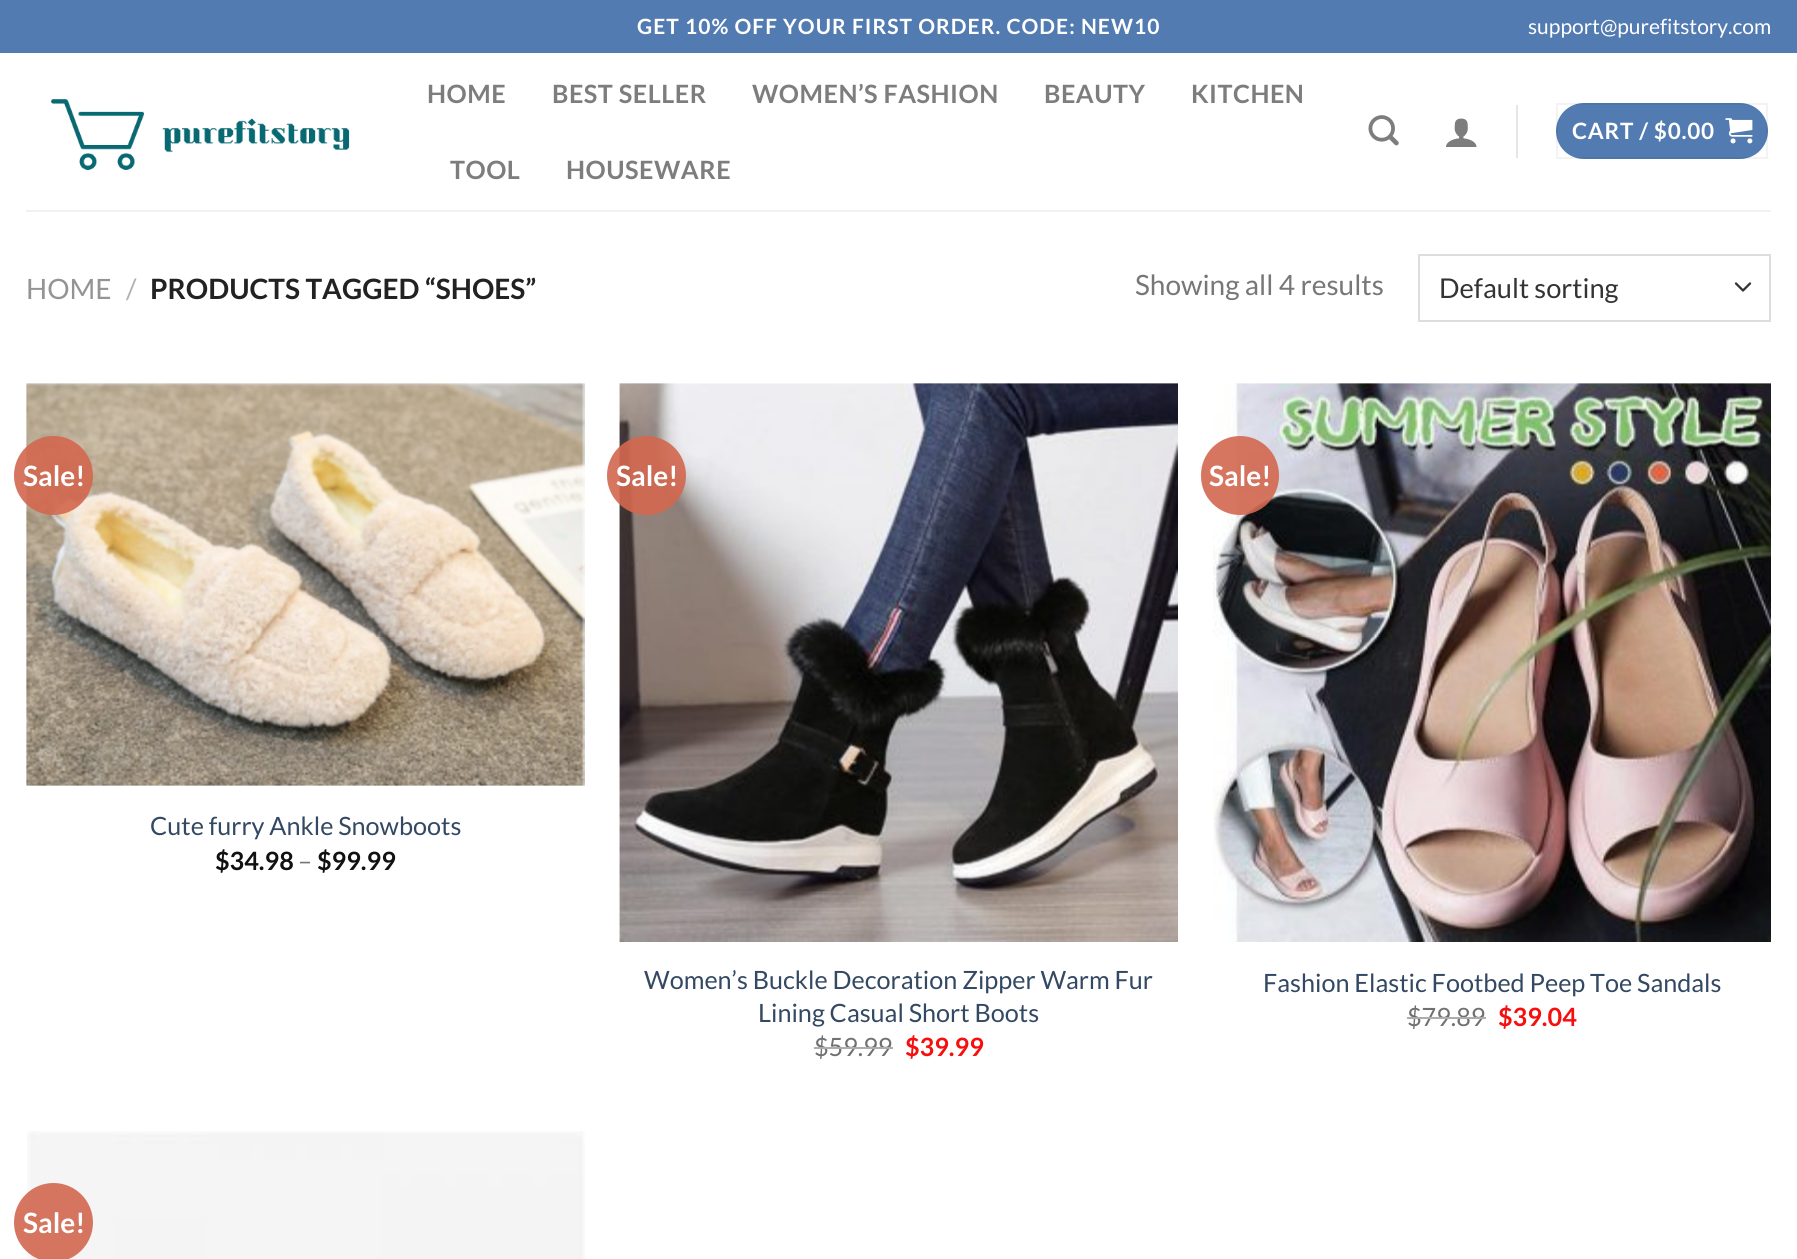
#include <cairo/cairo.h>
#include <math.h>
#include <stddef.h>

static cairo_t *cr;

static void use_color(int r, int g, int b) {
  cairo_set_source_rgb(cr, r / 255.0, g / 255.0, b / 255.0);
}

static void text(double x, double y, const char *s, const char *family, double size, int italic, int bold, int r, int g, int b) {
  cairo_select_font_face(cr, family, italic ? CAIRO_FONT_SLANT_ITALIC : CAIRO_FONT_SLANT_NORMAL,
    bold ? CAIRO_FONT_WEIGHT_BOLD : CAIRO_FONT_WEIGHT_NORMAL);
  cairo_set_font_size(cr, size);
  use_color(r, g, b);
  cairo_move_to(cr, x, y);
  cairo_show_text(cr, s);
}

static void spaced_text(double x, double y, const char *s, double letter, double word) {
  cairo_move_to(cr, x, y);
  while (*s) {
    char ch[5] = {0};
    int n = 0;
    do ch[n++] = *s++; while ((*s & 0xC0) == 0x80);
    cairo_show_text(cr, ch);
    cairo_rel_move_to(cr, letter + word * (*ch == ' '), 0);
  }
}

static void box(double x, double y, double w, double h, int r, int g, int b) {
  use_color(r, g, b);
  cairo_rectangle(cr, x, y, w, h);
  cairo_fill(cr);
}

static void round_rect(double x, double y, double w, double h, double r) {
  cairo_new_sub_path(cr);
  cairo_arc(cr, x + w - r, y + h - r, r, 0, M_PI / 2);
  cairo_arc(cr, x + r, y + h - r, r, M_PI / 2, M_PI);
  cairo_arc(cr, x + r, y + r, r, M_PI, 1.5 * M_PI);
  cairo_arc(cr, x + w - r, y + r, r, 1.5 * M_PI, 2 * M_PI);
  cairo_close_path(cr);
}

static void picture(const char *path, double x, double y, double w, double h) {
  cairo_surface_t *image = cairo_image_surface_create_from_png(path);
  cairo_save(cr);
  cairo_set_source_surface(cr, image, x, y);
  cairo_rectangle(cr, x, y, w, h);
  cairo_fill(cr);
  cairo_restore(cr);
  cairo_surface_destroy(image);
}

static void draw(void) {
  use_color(255, 255, 255);
  cairo_paint(cr);
  box(0, 0, 1797, 53, 82, 123, 177);
  picture("img_01.png", 51, 99, 299, 71);
  picture("img_02.png", 1368, 115, 31, 31);
  picture("img_03.png", 1446, 118, 31, 29);
  box(1516, 105, 2, 53, 230, 230, 230);
  use_color(82, 123, 177);
  round_rect(1556, 103, 212, 56, 28);
  cairo_fill(cr);
  cairo_rectangle(cr, 1557, 104, 210, 54);
  cairo_set_source_rgba(cr, 0, 0, 0, 0.05);
  cairo_stroke(cr);
  picture("img_04.png", 1725, 118, 28, 26);
  box(26, 210, 1745, 2, 241, 241, 241);
  cairo_new_path(cr);
  cairo_move_to(cr, 1736, 283.5);
  cairo_line_to(cr, 1743, 290.5);
  cairo_line_to(cr, 1750, 283.5);
  use_color(51, 51, 51);
  cairo_set_line_width(cr, 2.3);
  cairo_set_line_cap(cr, CAIRO_LINE_CAP_ROUND);
  cairo_set_line_join(cr, CAIRO_LINE_JOIN_ROUND);
  cairo_stroke(cr);
  cairo_rectangle(cr, 1419, 255, 351, 66);
  use_color(221, 221, 221);
  cairo_set_line_width(cr, 2);
  cairo_set_line_cap(cr, CAIRO_LINE_CAP_BUTT);
  cairo_set_line_join(cr, CAIRO_LINE_JOIN_MITER);
  cairo_stroke(cr);
  picture("img_05.png", 26, 383, 559, 403);
  cairo_set_source_rgba(cr, 0.827, 0.404, 0.31, 0.9);
  cairo_arc(cr, 53.5, 475.5, 39.5, 0, 2 * M_PI);
  cairo_fill(cr);
  picture("img_06.png", 619, 383, 559, 559);
  cairo_arc(cr, 646.5, 475.5, 39.5, 0, 2 * M_PI);
  cairo_fill(cr);
  picture("img_07.png", 1213, 383, 558, 559);
  round_rect(1201, 436, 78, 79, 39);
  cairo_fill(cr);
  picture("img_08.png", 27, 1131, 558, 128);
  cairo_arc(cr, 53.5, 1222.5, 39.5, 0, 2 * M_PI);
  cairo_fill(cr);
  cairo_select_font_face(cr, "Lato", CAIRO_FONT_SLANT_NORMAL, CAIRO_FONT_WEIGHT_BOLD);
  cairo_set_font_size(cr, 21);
  use_color(255, 255, 255);
  spaced_text(637, 34, "GET 10% OFF YOUR FIRST ORDER. CODE: NEW10", 1.05, 0);
  text(1528, 34, "support@purefitstory.com", "Lato", 21, 0, 0, 255, 255, 255);
  cairo_select_font_face(cr, "Lato", CAIRO_FONT_SLANT_NORMAL, CAIRO_FONT_WEIGHT_BOLD);
  cairo_set_font_size(cr, 25.2);
  use_color(125, 125, 125);
  spaced_text(427, 103, "HOME", 0.5, 0);
  spaced_text(552, 103, "BEST SELLER", 0.5, 0);
  spaced_text(752, 103, "WOMEN’S FASHION", 0.5, 0);
  spaced_text(1044, 103, "BEAUTY", 0.5, 0);
  spaced_text(1191, 103, "KITCHEN", 0.5, 0);
  spaced_text(450, 179, "TOOL", 0.5, 0);
  spaced_text(566, 179, "HOUSEWARE", 0.5, 0);
  cairo_set_font_size(cr, 22.5);
  use_color(255, 255, 255);
  spaced_text(1572, 139, "CART / $0.00", 0.75, 0);
  text(26, 299, "HOME", "Lato", 28, 0, 0, 148, 148, 148);
  text(126, 299, "/", "Lato", 28, 0, 0, 178, 178, 178);
  text(150, 299, "PRODUCTS TAGGED “SHOES”", "Lato", 28, 0, 1, 34, 34, 34);
  text(1135, 295, "Showing all 4 results", "Lato", 28, 0, 0, 119, 119, 119);
  text(1439, 298, "Default sorting", "Lato", 27.25, 0, 0, 51, 51, 51);
  text(23, 486, "Sale!", "Lato", 28, 0, 1, 255, 255, 255);
  text(150, 835, "Cute furry Ankle Snowboots", "Lato", 25.2, 0, 0, 51, 72, 98);
  text(215, 870, "$34.98", "Lato", 25.2, 0, 1, 17, 17, 17);
  text(298, 870, "–", "Lato", 25.2, 0, 0, 119, 119, 119);
  text(317, 870, "$99.99", "Lato", 25.2, 0, 1, 17, 17, 17);
  text(616, 486, "Sale!", "Lato", 28, 0, 1, 255, 255, 255);
  text(644, 989, "Women’s Buckle Decoration Zipper Warm Fur", "Lato", 25.2, 0, 0, 51, 72, 98);
  text(758, 1022, "Lining Casual Short Boots", "Lato", 25.2, 0, 0, 51, 72, 98);
  text(814, 1056, "$59.99", "Lato", 25.2, 0, 0, 112, 112, 112);
  box(814, 1047, 79, 2, 173, 173, 173);
  text(905, 1056, "$39.99", "Lato", 25.2, 0, 1, 245, 15, 15);
  text(1209, 486, "Sale!", "Lato", 28, 0, 1, 255, 255, 255);
  text(1263, 992, "Fashion Elastic Footbed Peep Toe Sandals", "Lato", 25.2, 0, 0, 51, 72, 98);
  text(1407, 1026, "$79.89", "Lato", 25.2, 0, 0, 112, 112, 112);
  box(1407, 1017, 79, 2, 173, 173, 173);
  text(1498, 1026, "$39.04", "Lato", 25.2, 0, 1, 245, 15, 15);
  text(23, 1233, "Sale!", "Lato", 28, 0, 1, 255, 255, 255);
}

int main(void) {
  cairo_surface_t *surface = cairo_image_surface_create(CAIRO_FORMAT_RGB24, 1797, 1259);
  cr = cairo_create(surface);
  cairo_font_options_t *options = cairo_font_options_create();
  cairo_font_options_set_hint_metrics(options, CAIRO_HINT_METRICS_OFF);
  cairo_font_options_set_hint_style(options, CAIRO_HINT_STYLE_NONE);
  cairo_set_font_options(cr, options);
  cairo_set_miter_limit(cr, 4);
  draw();
  cairo_surface_write_to_png(surface, "out.png");
  cairo_font_options_destroy(options);
  cairo_destroy(cr);
  cairo_surface_destroy(surface);
  return 0;
}
